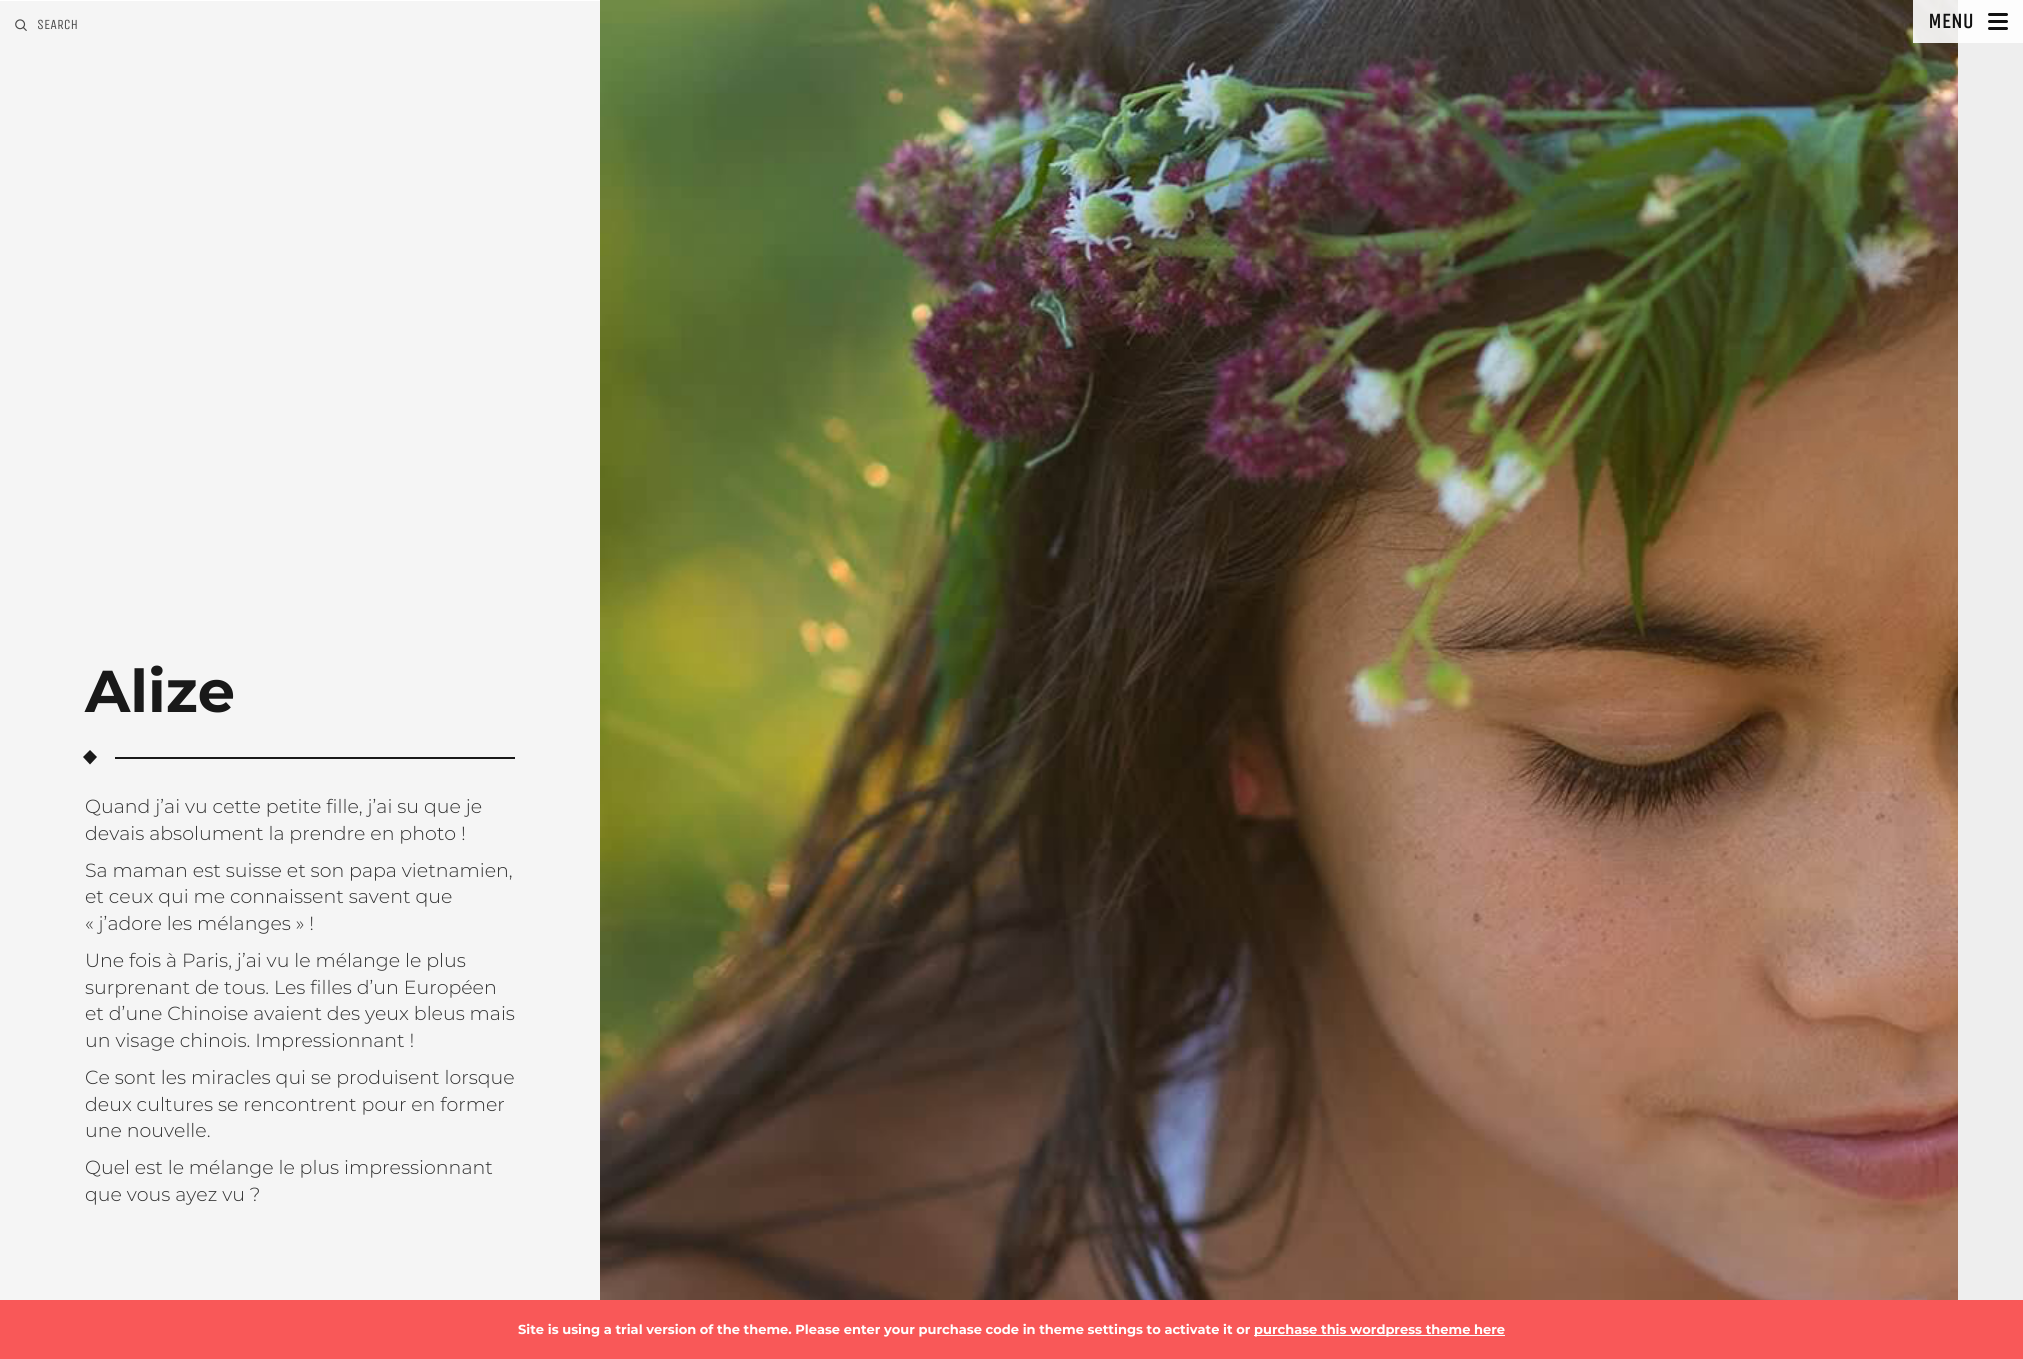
#include <cairo/cairo.h>
#include <math.h>
#include <stddef.h>

static cairo_t *cr;

static void use_color(int r, int g, int b) {
  cairo_set_source_rgb(cr, r / 255.0, g / 255.0, b / 255.0);
}

static void text(double x, double y, const char *s, const char *family, double size, int italic, int bold, int r, int g, int b) {
  cairo_select_font_face(cr, family, italic ? CAIRO_FONT_SLANT_ITALIC : CAIRO_FONT_SLANT_NORMAL,
    bold ? CAIRO_FONT_WEIGHT_BOLD : CAIRO_FONT_WEIGHT_NORMAL);
  cairo_set_font_size(cr, size);
  use_color(r, g, b);
  cairo_move_to(cr, x, y);
  cairo_show_text(cr, s);
}

static void box(double x, double y, double w, double h, int r, int g, int b) {
  use_color(r, g, b);
  cairo_rectangle(cr, x, y, w, h);
  cairo_fill(cr);
}

static void round_rect(double x, double y, double w, double h, double r) {
  cairo_new_sub_path(cr);
  cairo_arc(cr, x + w - r, y + h - r, r, 0, M_PI / 2);
  cairo_arc(cr, x + r, y + h - r, r, M_PI / 2, M_PI);
  cairo_arc(cr, x + r, y + r, r, M_PI, 1.5 * M_PI);
  cairo_arc(cr, x + w - r, y + r, r, 1.5 * M_PI, 2 * M_PI);
  cairo_close_path(cr);
}

static void picture(const char *path, double x, double y, double w, double h) {
  cairo_surface_t *image = cairo_image_surface_create_from_png(path);
  cairo_save(cr);
  cairo_set_source_surface(cr, image, x, y);
  cairo_rectangle(cr, x, y, w, h);
  cairo_fill(cr);
  cairo_restore(cr);
  cairo_surface_destroy(image);
}

static void draw(void) {
  use_color(238, 238, 238);
  cairo_paint(cr);
  box(0, 1, 600, 1299, 245, 245, 245);
  box(0, 0, 600, 1, 255, 255, 255);
  picture("img_01.png", 15, 19, 12, 12);
  use_color(25, 25, 25);
  cairo_new_path(cr);
  cairo_move_to(cr, 90, 750);
  cairo_line_to(cr, 97, 757);
  cairo_line_to(cr, 90, 764.5);
  cairo_line_to(cr, 83, 757);
  cairo_close_path(cr);
  cairo_fill(cr);
  box(115, 757, 400, 2, 25, 25, 25);
  picture("img_02.png", 600, 0, 1358, 1300);
  cairo_set_source_rgba(cr, 1, 1, 1, 0.9);
  cairo_rectangle(cr, 1913, 0, 110, 43);
  cairo_fill(cr);
  use_color(17, 17, 17);
  round_rect(1988, 13, 20, 3, 1.5);
  cairo_fill(cr);
  round_rect(1988, 20, 20, 3, 1.5);
  cairo_fill(cr);
  round_rect(1988, 27, 20, 3, 1.5);
  cairo_fill(cr);
  box(0, 1300, 2023, 59, 249, 88, 88);
  box(1254, 1335, 251, 1, 255, 255, 255);
  text(37, 29, "SEARCH", "Unica One", 14, 0, 0, 74, 74, 74);
  text(85, 712, "Alize", "Montserrat", 59, 0, 1, 25, 25, 25);
  text(85, 813, "Quand j’ai vu cette petite fille, j’ai su que je", "Montserrat Light", 19, 0, 0, 49, 49, 49);
  text(85, 840, "devais absolument la prendre en photo !", "Montserrat Light", 19, 0, 0, 49, 49, 49);
  text(85, 877, "Sa maman est suisse et son papa vietnamien,", "Montserrat Light", 19, 0, 0, 49, 49, 49);
  text(85, 903, "et ceux qui me connaissent savent que", "Montserrat Light", 19, 0, 0, 49, 49, 49);
  text(85, 930, "« j’adore les mélanges » !", "Montserrat Light", 19, 0, 0, 49, 49, 49);
  text(85, 967, "Une fois à Paris, j’ai vu le mélange le plus", "Montserrat Light", 19, 0, 0, 49, 49, 49);
  text(85, 994, "surprenant de tous. Les filles d’un Européen", "Montserrat Light", 19, 0, 0, 49, 49, 49);
  text(85, 1020, "et d’une Chinoise avaient des yeux bleus mais", "Montserrat Light", 19, 0, 0, 49, 49, 49);
  text(85, 1047, "un visage chinois. Impressionnant !", "Montserrat Light", 19, 0, 0, 49, 49, 49);
  text(85, 1084, "Ce sont les miracles qui se produisent lorsque", "Montserrat Light", 19, 0, 0, 49, 49, 49);
  text(85, 1111, "deux cultures se rencontrent pour en former", "Montserrat Light", 19, 0, 0, 49, 49, 49);
  text(85, 1137, "une nouvelle.", "Montserrat Light", 19, 0, 0, 49, 49, 49);
  text(85, 1174, "Quel est le mélange le plus impressionnant", "Montserrat Light", 19, 0, 0, 49, 49, 49);
  text(85, 1201, "que vous ayez vu ?", "Montserrat Light", 19, 0, 0, 49, 49, 49);
  text(1928, 28, "MENU", "Unica One", 21, 0, 1, 17, 17, 17);
  text(518, 1334, "Site is using a trial version of the theme. Please enter your purchase code in theme settings to activate it or", "Montserrat", 13, 0, 1, 255, 255, 255);
  text(1254, 1334, "purchase this wordpress theme here", "Montserrat", 13, 0, 1, 255, 255, 255);
}

int main(void) {
  cairo_surface_t *surface = cairo_image_surface_create(CAIRO_FORMAT_RGB24, 2023, 1359);
  cr = cairo_create(surface);
  cairo_font_options_t *options = cairo_font_options_create();
  cairo_font_options_set_hint_metrics(options, CAIRO_HINT_METRICS_OFF);
  cairo_font_options_set_hint_style(options, CAIRO_HINT_STYLE_NONE);
  cairo_set_font_options(cr, options);
  cairo_set_miter_limit(cr, 4);
  draw();
  cairo_surface_write_to_png(surface, "out.png");
  cairo_font_options_destroy(options);
  cairo_destroy(cr);
  cairo_surface_destroy(surface);
  return 0;
}
